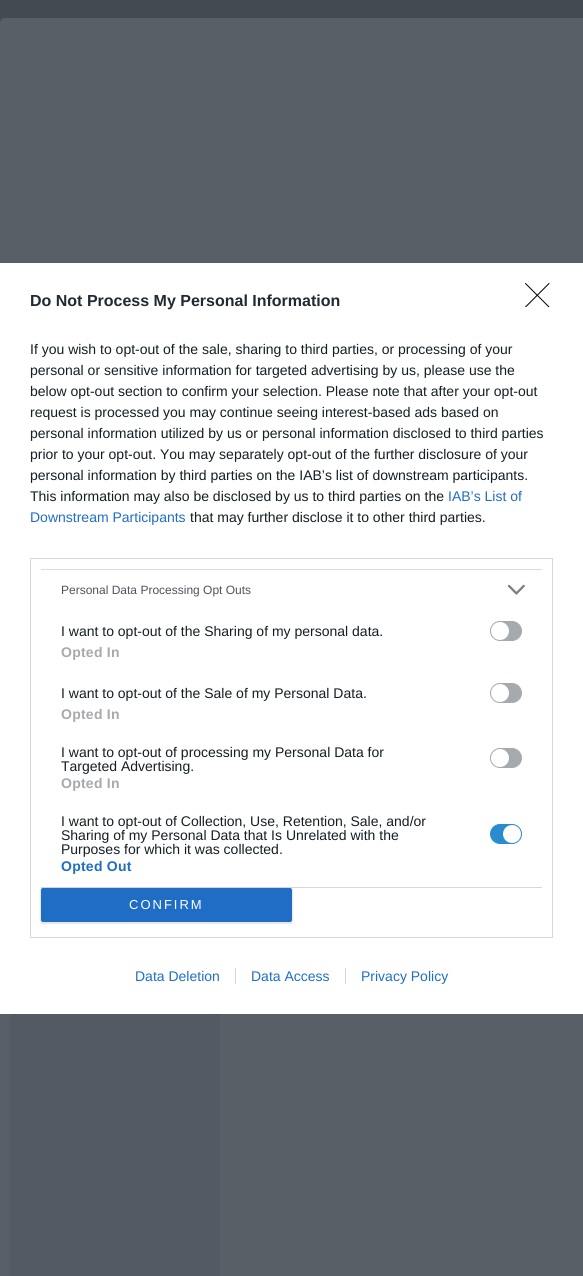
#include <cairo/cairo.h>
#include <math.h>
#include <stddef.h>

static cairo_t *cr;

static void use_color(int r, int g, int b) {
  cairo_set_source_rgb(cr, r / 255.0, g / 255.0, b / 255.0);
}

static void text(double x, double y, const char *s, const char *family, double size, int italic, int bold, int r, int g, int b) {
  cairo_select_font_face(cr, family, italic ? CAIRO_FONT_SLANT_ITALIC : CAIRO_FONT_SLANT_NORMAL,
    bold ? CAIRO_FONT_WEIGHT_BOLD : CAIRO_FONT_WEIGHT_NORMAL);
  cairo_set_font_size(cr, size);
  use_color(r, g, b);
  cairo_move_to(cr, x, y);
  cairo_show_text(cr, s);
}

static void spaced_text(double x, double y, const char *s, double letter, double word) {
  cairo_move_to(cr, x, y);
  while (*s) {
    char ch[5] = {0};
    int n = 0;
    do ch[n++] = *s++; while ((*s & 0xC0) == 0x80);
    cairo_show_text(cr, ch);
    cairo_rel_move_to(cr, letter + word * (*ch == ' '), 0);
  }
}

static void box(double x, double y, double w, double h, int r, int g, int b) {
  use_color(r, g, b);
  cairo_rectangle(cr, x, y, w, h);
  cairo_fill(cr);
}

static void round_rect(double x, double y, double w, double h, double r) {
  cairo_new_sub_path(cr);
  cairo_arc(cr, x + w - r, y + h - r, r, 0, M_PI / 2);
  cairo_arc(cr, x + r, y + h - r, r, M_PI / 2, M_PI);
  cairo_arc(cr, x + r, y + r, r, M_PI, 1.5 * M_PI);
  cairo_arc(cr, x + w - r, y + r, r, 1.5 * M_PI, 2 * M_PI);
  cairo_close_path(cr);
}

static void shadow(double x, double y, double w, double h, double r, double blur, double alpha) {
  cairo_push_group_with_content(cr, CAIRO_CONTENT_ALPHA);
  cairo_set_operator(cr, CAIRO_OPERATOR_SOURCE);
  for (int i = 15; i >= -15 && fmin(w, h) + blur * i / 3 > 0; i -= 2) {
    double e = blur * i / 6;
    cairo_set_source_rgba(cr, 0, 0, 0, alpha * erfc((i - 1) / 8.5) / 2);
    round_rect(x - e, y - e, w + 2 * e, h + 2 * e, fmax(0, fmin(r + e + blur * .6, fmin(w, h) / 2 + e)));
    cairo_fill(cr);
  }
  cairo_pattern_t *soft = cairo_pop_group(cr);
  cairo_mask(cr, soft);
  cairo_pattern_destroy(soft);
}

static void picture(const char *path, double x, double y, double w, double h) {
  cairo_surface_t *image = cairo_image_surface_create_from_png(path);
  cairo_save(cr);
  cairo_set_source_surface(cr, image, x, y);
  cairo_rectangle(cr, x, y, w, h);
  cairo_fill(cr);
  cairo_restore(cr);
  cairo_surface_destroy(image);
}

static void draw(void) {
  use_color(68, 74, 82);
  cairo_paint(cr);
  use_color(89, 95, 103);
  cairo_new_path(cr);
  cairo_move_to(cr, 5, 18);
  cairo_line_to(cr, 583, 18);
  cairo_curve_to(cr, 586, 18, 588, 20, 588, 23);
  cairo_line_to(cr, 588, 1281);
  cairo_line_to(cr, 0, 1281);
  cairo_line_to(cr, 0, 23);
  cairo_curve_to(cr, 0, 20, 2, 18, 5, 18);
  cairo_close_path(cr);
  cairo_fill(cr);
  box(10, 1014, 210, 262, 84, 90, 99);
  box(0, 263, 583, 751, 255, 255, 255);
  cairo_save(cr);
  cairo_rectangle(cr, 525, 283, 25, 24);
  cairo_clip(cr);
  cairo_new_path(cr);
  cairo_move_to(cr, 525.5, 283.5);
  cairo_line_to(cr, 549, 307);
  cairo_move_to(cr, 549, 283.5);
  cairo_line_to(cr, 525.5, 307);
  use_color(0, 0, 0);
  cairo_set_line_width(cr, 1);
  cairo_set_line_cap(cr, CAIRO_LINE_CAP_ROUND);
  cairo_set_line_join(cr, CAIRO_LINE_JOIN_ROUND);
  cairo_stroke(cr);
  cairo_restore(cr);
  cairo_rectangle(cr, 30.5, 558.5, 522, 379);
  use_color(216, 216, 216);
  cairo_set_line_width(cr, 1);
  cairo_stroke(cr);
  box(41, 569, 501, 1, 221, 221, 221);
  box(41, 887, 501, 1, 216, 216, 216);
  picture("img_01.png", 507, 584, 18, 11);
  use_color(166, 169, 174);
  round_rect(490.5, 621.5, 31, 19, 9.5);
  cairo_fill_preserve(cr);
  cairo_stroke(cr);
  use_color(255, 255, 255);
  cairo_arc(cr, 500, 631, 9, 0, 2 * M_PI);
  cairo_fill(cr);
  use_color(166, 169, 174);
  round_rect(490.5, 683.5, 31, 19, 9.5);
  cairo_fill_preserve(cr);
  cairo_stroke(cr);
  use_color(255, 255, 255);
  cairo_arc(cr, 500, 693, 9, 0, 2 * M_PI);
  cairo_fill(cr);
  use_color(166, 169, 174);
  round_rect(490.5, 748.5, 31, 19, 9.5);
  cairo_fill_preserve(cr);
  cairo_stroke(cr);
  use_color(255, 255, 255);
  cairo_arc(cr, 500, 758, 9, 0, 2 * M_PI);
  cairo_fill(cr);
  use_color(41, 140, 205);
  round_rect(490.5, 824.5, 31, 19, 9.5);
  cairo_fill_preserve(cr);
  cairo_stroke(cr);
  use_color(255, 255, 255);
  cairo_arc(cr, 512, 834, 9, 0, 2 * M_PI);
  cairo_fill(cr);
  use_color(0, 0, 0);
  shadow(40, 888, 253, 36, 3, 0.5, 0.1);
  use_color(32, 109, 197);
  round_rect(41, 888, 251, 34, 2);
  cairo_fill(cr);
  box(235, 968, 1, 16, 216, 216, 216);
  box(345, 968, 1, 16, 216, 216, 216);
  text(30, 306, "Do Not Process My Personal Information", "Liberation Sans", 16, 0, 1, 33, 41, 52);
  text(30, 354, "If you wish to opt-out of the sale, sharing to third parties, or processing of your", "Liberation Sans", 14, 0, 0, 20, 30, 35);
  text(30, 375, "personal or sensitive information for targeted advertising by us, please use the", "Liberation Sans", 14, 0, 0, 20, 30, 35);
  text(30, 396, "below opt-out section to confirm your selection. Please note that after your opt-out", "Liberation Sans", 14, 0, 0, 20, 30, 35);
  text(30, 417, "request is processed you may continue seeing interest-based ads based on", "Liberation Sans", 14, 0, 0, 20, 30, 35);
  text(30, 438, "personal information utilized by us or personal information disclosed to third parties", "Liberation Sans", 14, 0, 0, 20, 30, 35);
  text(30, 459, "prior to your opt-out. You may separately opt-out of the further disclosure of your", "Liberation Sans", 14, 0, 0, 20, 30, 35);
  text(30, 480, "personal information by third parties on the IAB’s list of downstream participants.", "Liberation Sans", 14, 0, 0, 20, 30, 35);
  text(30, 501, "This information may also be disclosed by us to third parties on the", "Liberation Sans", 14, 0, 0, 20, 30, 35);
  text(448, 501, "IAB’s List of", "Liberation Sans", 14, 0, 0, 32, 109, 197);
  text(30, 522, "Downstream Participants", "Liberation Sans", 14, 0, 0, 32, 109, 197);
  text(190, 522, "that may further disclose it to other third parties.", "Liberation Sans", 14, 0, 0, 20, 30, 35);
  text(61, 594, "Personal Data Processing Opt Outs", "Liberation Sans", 12, 0, 0, 77, 84, 93);
  text(61, 636, "I want to opt-out of the Sharing of my personal data.", "Liberation Sans", 14, 0, 0, 20, 30, 35);
  cairo_select_font_face(cr, "Liberation Sans", CAIRO_FONT_SLANT_NORMAL, CAIRO_FONT_WEIGHT_BOLD);
  use_color(166, 169, 174);
  spaced_text(61, 657, "Opted In", 0.25, 0);
  text(61, 698, "I want to opt-out of the Sale of my Personal Data.", "Liberation Sans", 14, 0, 0, 20, 30, 35);
  cairo_select_font_face(cr, "Liberation Sans", CAIRO_FONT_SLANT_NORMAL, CAIRO_FONT_WEIGHT_BOLD);
  use_color(166, 169, 174);
  spaced_text(61, 719, "Opted In", 0.25, 0);
  text(61, 757, "I want to opt-out of processing my Personal Data for", "Liberation Sans", 14, 0, 0, 20, 30, 35);
  text(61, 771, "Targeted Advertising.", "Liberation Sans", 14, 0, 0, 20, 30, 35);
  cairo_select_font_face(cr, "Liberation Sans", CAIRO_FONT_SLANT_NORMAL, CAIRO_FONT_WEIGHT_BOLD);
  use_color(166, 169, 174);
  spaced_text(61, 788, "Opted In", 0.25, 0);
  text(61, 826, "I want to opt-out of Collection, Use, Retention, Sale, and/or", "Liberation Sans", 14, 0, 0, 20, 30, 35);
  text(61, 840, "Sharing of my Personal Data that Is Unrelated with the", "Liberation Sans", 14, 0, 0, 20, 30, 35);
  text(61, 854, "Purposes for which it was collected.", "Liberation Sans", 14, 0, 0, 20, 30, 35);
  cairo_select_font_face(cr, "Liberation Sans", CAIRO_FONT_SLANT_NORMAL, CAIRO_FONT_WEIGHT_BOLD);
  use_color(32, 109, 197);
  spaced_text(61, 871, "Opted Out", 0.25, 0);
  cairo_select_font_face(cr, "Liberation Sans", CAIRO_FONT_SLANT_NORMAL, CAIRO_FONT_WEIGHT_NORMAL);
  cairo_set_font_size(cr, 13);
  use_color(255, 255, 255);
  spaced_text(129, 909, "CONFIRM", 2, 0);
  text(135, 981, "Data Deletion", "Liberation Sans", 14, 0, 0, 32, 109, 197);
  text(251, 981, "Data Access", "Liberation Sans", 14, 0, 0, 32, 109, 197);
  text(361, 981, "Privacy Policy", "Liberation Sans", 14, 0, 0, 32, 109, 197);
}

int main(void) {
  cairo_surface_t *surface = cairo_image_surface_create(CAIRO_FORMAT_RGB24, 583, 1276);
  cr = cairo_create(surface);
  cairo_font_options_t *options = cairo_font_options_create();
  cairo_font_options_set_hint_metrics(options, CAIRO_HINT_METRICS_OFF);
  cairo_font_options_set_hint_style(options, CAIRO_HINT_STYLE_NONE);
  cairo_set_font_options(cr, options);
  cairo_set_miter_limit(cr, 4);
  draw();
  cairo_surface_write_to_png(surface, "out.png");
  cairo_font_options_destroy(options);
  cairo_destroy(cr);
  cairo_surface_destroy(surface);
  return 0;
}
